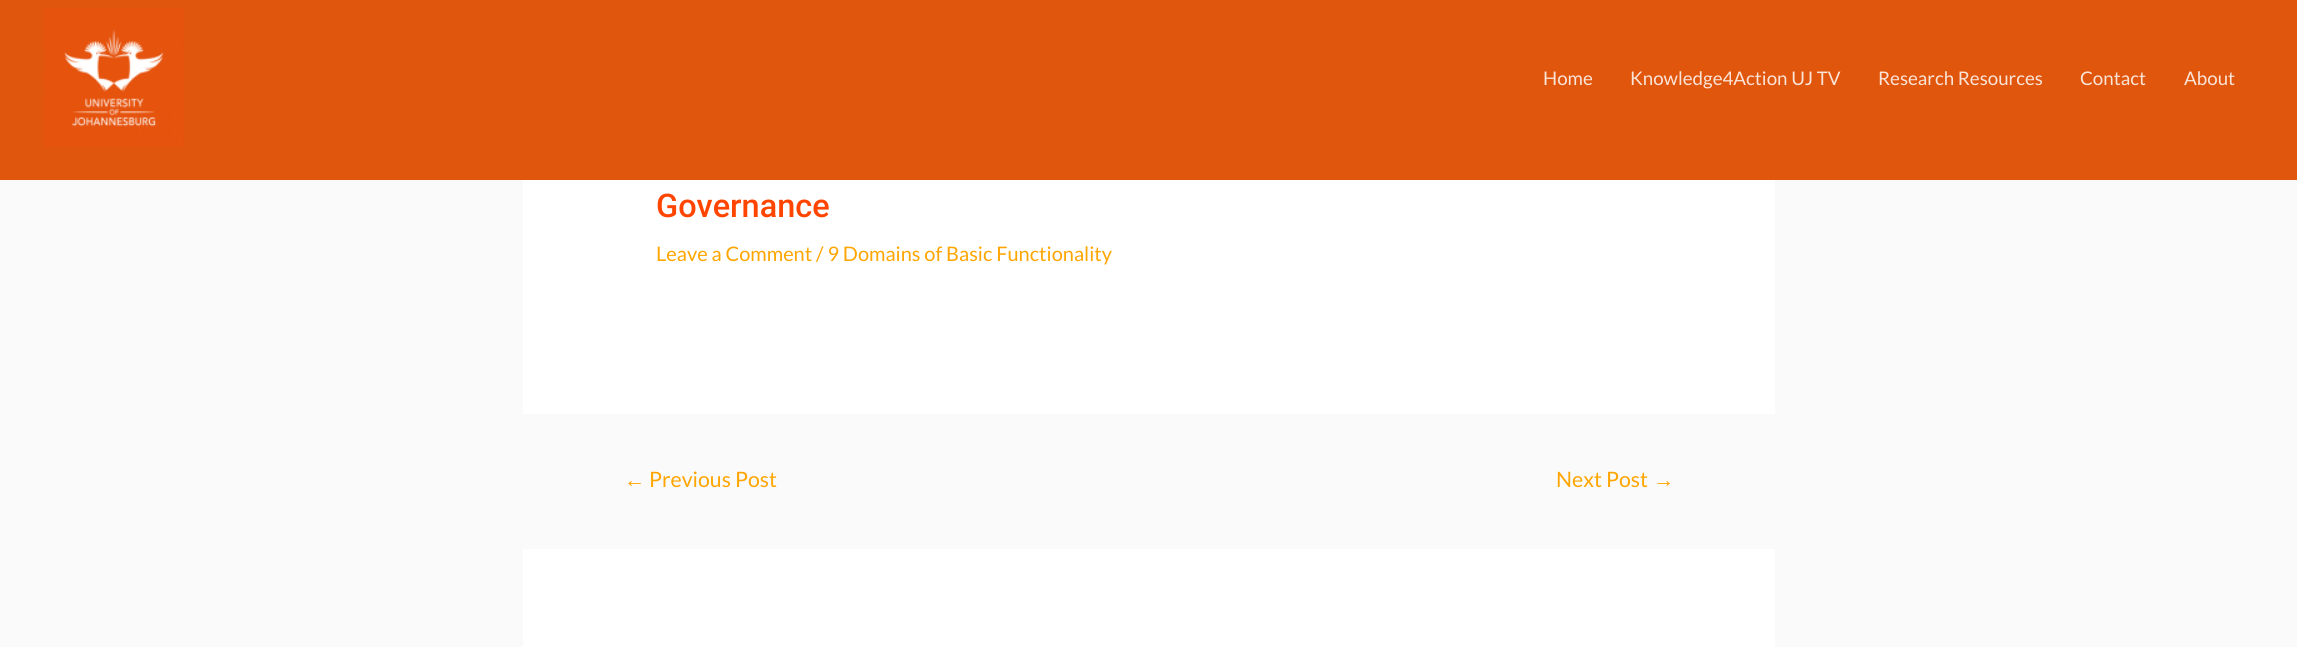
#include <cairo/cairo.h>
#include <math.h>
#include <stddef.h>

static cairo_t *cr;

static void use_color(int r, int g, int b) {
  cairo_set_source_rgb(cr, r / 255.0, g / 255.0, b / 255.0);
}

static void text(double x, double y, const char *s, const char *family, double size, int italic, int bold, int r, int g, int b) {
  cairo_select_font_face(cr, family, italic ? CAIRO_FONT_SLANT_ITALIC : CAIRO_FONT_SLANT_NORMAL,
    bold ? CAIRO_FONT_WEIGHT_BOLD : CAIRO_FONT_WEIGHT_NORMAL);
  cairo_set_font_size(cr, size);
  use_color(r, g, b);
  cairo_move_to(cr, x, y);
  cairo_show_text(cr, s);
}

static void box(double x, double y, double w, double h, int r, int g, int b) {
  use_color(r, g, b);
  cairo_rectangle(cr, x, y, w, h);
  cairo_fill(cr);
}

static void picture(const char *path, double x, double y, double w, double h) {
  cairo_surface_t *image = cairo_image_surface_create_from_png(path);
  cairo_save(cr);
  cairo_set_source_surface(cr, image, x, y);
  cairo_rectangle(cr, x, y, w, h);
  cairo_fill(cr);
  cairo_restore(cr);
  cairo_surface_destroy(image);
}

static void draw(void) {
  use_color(250, 250, 250);
  cairo_paint(cr);
  box(0, 0, 2297, 180, 224, 86, 12);
  picture("img_01.png", 44, 8, 140, 139);
  box(523, 180, 1252, 234, 255, 255, 255);
  box(523, 549, 1252, 98, 255, 255, 255);
  text(1543, 85, "Home", "Lato", 18.75, 0, 0, 250, 228, 216);
  text(1630, 85, "Knowledge4Action UJ TV", "Lato", 18.75, 0, 0, 250, 228, 216);
  text(1878, 85, "Research Resources", "Lato", 18.75, 0, 0, 250, 228, 216);
  text(2080, 85, "Contact", "Lato", 18.75, 0, 0, 250, 228, 216);
  text(2184, 85, "About", "Lato", 18.75, 0, 0, 250, 228, 216);
  text(656, 217, "Governance", "Roboto Medium", 32.5, 0, 0, 255, 69, 0);
  text(656, 261, "Leave a Comment / 9 Domains of Basic Functionality", "Lato", 20, 0, 0, 255, 165, 0);
  text(624, 487, "←", "Liberation Sans", 21.25, 0, 0, 255, 165, 0);
  text(649, 487, "Previous Post", "Lato", 21.25, 0, 0, 255, 165, 0);
  text(1556, 487, "Next Post", "Lato", 21.25, 0, 0, 255, 165, 0);
  text(1653, 487, "→", "Liberation Sans", 21.25, 0, 0, 255, 165, 0);
}

int main(void) {
  cairo_surface_t *surface = cairo_image_surface_create(CAIRO_FORMAT_RGB24, 2297, 647);
  cr = cairo_create(surface);
  cairo_font_options_t *options = cairo_font_options_create();
  cairo_font_options_set_hint_metrics(options, CAIRO_HINT_METRICS_OFF);
  cairo_font_options_set_hint_style(options, CAIRO_HINT_STYLE_NONE);
  cairo_set_font_options(cr, options);
  cairo_set_miter_limit(cr, 4);
  draw();
  cairo_surface_write_to_png(surface, "out.png");
  cairo_font_options_destroy(options);
  cairo_destroy(cr);
  cairo_surface_destroy(surface);
  return 0;
}
